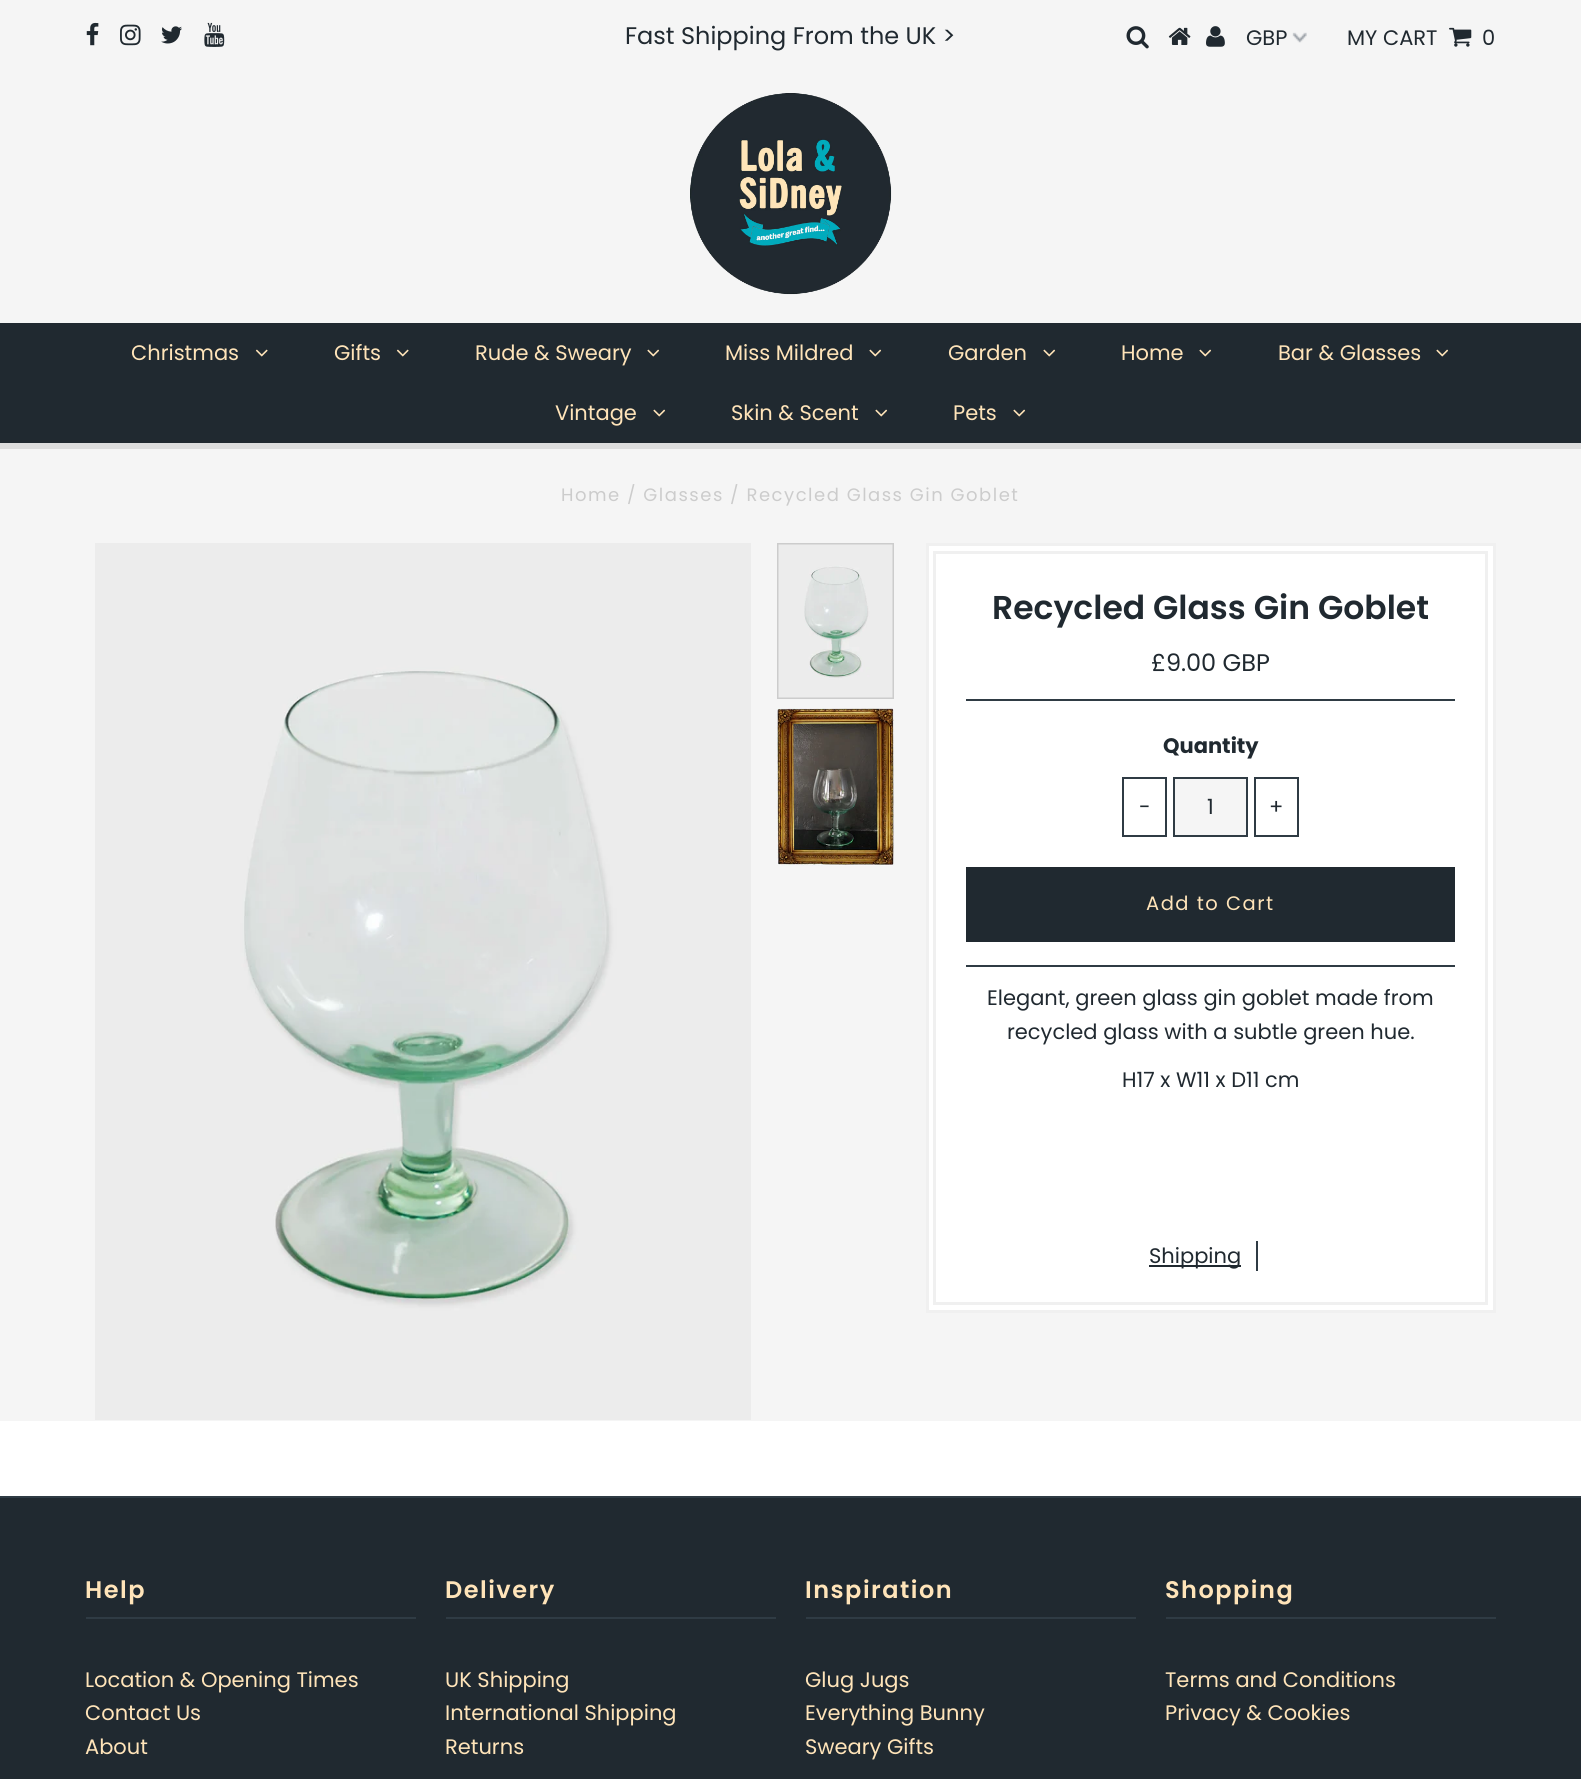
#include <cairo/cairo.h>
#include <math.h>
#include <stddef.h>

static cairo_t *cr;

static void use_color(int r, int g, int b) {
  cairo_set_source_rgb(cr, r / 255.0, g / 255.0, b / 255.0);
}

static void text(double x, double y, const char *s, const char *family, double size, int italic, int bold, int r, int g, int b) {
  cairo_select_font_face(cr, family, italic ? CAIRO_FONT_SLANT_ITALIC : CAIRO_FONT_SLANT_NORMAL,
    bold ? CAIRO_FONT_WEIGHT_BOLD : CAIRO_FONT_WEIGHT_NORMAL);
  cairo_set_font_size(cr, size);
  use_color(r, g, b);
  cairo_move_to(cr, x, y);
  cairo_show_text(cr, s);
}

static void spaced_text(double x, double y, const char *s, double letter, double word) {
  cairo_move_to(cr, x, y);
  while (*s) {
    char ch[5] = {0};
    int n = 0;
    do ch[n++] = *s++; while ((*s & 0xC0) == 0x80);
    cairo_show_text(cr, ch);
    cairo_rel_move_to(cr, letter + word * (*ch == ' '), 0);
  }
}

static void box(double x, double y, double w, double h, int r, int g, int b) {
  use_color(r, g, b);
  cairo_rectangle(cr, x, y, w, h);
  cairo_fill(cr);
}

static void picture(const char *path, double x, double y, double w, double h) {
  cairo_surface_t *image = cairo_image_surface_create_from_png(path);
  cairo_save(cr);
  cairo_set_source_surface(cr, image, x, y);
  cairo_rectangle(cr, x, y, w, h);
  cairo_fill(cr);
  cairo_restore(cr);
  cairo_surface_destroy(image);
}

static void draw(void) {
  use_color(255, 255, 255);
  cairo_paint(cr);
  box(0, 0, 1581, 323, 245, 245, 245);
  picture("img_01.png", 86, 22, 13, 24);
  picture("img_02.png", 120, 24, 21, 22);
  picture("img_03.png", 161, 26, 21, 18);
  picture("img_04.png", 204, 22, 21, 25);
  picture("img_05.png", 1126, 26, 23, 23);
  picture("img_06.png", 1168, 27, 23, 18);
  picture("img_07.png", 1206, 26, 19, 21);
  picture("img_08.png", 1292, 32, 15, 11);
  picture("img_09.png", 1449, 27, 23, 20);
  picture("img_10.png", 690, 93, 202, 202);
  box(0, 323, 1581, 120, 32, 41, 48);
  box(0, 443, 1581, 6, 221, 221, 221);
  picture("img_11.png", 255, 349, 13, 8);
  picture("img_11.png", 396, 349, 13, 8);
  picture("img_12.png", 647, 349, 13, 8);
  picture("img_12.png", 869, 349, 13, 8);
  picture("img_12.png", 1043, 349, 13, 8);
  picture("img_12.png", 1199, 349, 13, 8);
  picture("img_12.png", 1436, 349, 13, 8);
  picture("img_12.png", 653, 409, 13, 8);
  picture("img_12.png", 875, 409, 13, 8);
  picture("img_12.png", 1013, 409, 13, 8);
  box(0, 449, 1581, 972, 245, 245, 245);
  picture("img_13.png", 95, 543, 656, 877);
  cairo_rectangle(cr, 778, 544, 115, 154);
  use_color(204, 204, 204);
  cairo_stroke(cr);
  picture("img_14.png", 778, 544, 115, 154);
  picture("img_15.png", 777, 708, 117, 158);
  use_color(255, 255, 255);
  cairo_rectangle(cr, 927.5, 544.5, 567, 767);
  cairo_fill_preserve(cr);
  use_color(240, 240, 240);
  cairo_set_line_width(cr, 3);
  cairo_stroke(cr);
  cairo_rectangle(cr, 934.5, 552.5, 552, 751);
  cairo_stroke(cr);
  box(966, 965, 489, 2, 47, 59, 68);
  box(966, 699, 489, 2, 47, 59, 68);
  cairo_rectangle(cr, 1123, 778, 43, 58);
  cairo_set_line_width(cr, 2);
  cairo_stroke(cr);
  use_color(245, 245, 245);
  cairo_rectangle(cr, 1174, 778, 73, 58);
  cairo_fill_preserve(cr);
  use_color(47, 59, 68);
  cairo_stroke(cr);
  cairo_rectangle(cr, 1255, 778, 43, 58);
  cairo_stroke(cr);
  box(966, 867, 489, 75, 32, 41, 48);
  box(1256, 1241, 2, 30, 47, 59, 68);
  box(1149, 1265, 92, 2, 32, 41, 48);
  box(0, 1498, 1581, 281, 32, 41, 48);
  box(0, 1496, 1581, 2, 47, 59, 68);
  box(86, 1617, 330, 2, 47, 59, 68);
  box(446, 1617, 330, 2, 47, 59, 68);
  box(806, 1617, 330, 2, 47, 59, 68);
  box(1166, 1617, 330, 2, 47, 59, 68);
  text(625, 44, "Fast Shipping From the UK >", "Poppins", 24, 0, 0, 32, 41, 48);
  text(1246, 45, "GBP", "Poppins", 21, 0, 0, 32, 41, 48);
  text(1347, 45, "MY CART", "Poppins", 21, 0, 0, 32, 41, 48);
  text(1482, 45, "0", "Poppins", 21, 0, 0, 32, 41, 48);
  text(131, 360, "Christmas", "Poppins", 21, 0, 0, 255, 228, 185);
  text(334, 360, "Gifts", "Poppins", 21, 0, 0, 255, 228, 185);
  text(475, 360, "Rude & Sweary", "Poppins", 21, 0, 0, 255, 228, 185);
  text(725, 360, "Miss Mildred", "Poppins", 21, 0, 0, 255, 228, 185);
  text(948, 360, "Garden", "Poppins", 21, 0, 0, 255, 228, 185);
  text(1121, 360, "Home", "Poppins", 21, 0, 0, 255, 228, 185);
  text(1278, 360, "Bar & Glasses", "Poppins", 21, 0, 0, 255, 228, 185);
  text(555, 420, "Vintage", "Poppins", 21, 0, 0, 255, 228, 185);
  text(731, 420, "Skin & Scent", "Poppins", 21, 0, 0, 255, 228, 185);
  text(953, 420, "Pets", "Poppins", 21, 0, 0, 255, 228, 185);
  cairo_set_font_size(cr, 18);
  use_color(204, 204, 204);
  spaced_text(561, 501, "Home / Glasses / Recycled Glass Gin Goblet", 1.5, 0);
  text(992, 619, "Recycled Glass Gin Goblet", "Poppins SemiBold", 33, 0, 0, 32, 41, 48);
  text(1151, 671, "£9.00 GBP", "Poppins", 24, 0, 0, 32, 41, 48);
  text(1163, 753, "Quantity", "Poppins", 21, 0, 1, 32, 41, 48);
  text(1139, 814, "-", "Poppins", 21, 0, 0, 32, 41, 48);
  text(1207, 814, "1", "Poppins", 21, 0, 0, 32, 41, 48);
  text(1269, 814, "+", "Poppins", 21, 0, 0, 32, 41, 48);
  cairo_set_font_size(cr, 19.5);
  use_color(255, 228, 185);
  spaced_text(1146, 910, "Add to Cart", 1.5, 0);
  text(987, 1005, "Elegant, green glass gin goblet made from", "Poppins", 21, 0, 0, 32, 41, 48);
  text(1007, 1039, "recycled glass with a subtle green hue.", "Poppins", 21, 0, 0, 32, 41, 48);
  text(1122, 1087, "H17 x W11 x D11 cm", "Poppins", 21, 0, 0, 32, 41, 48);
  text(1149, 1263, "Shipping", "Poppins", 21, 0, 0, 32, 41, 48);
  cairo_select_font_face(cr, "Poppins SemiBold", CAIRO_FONT_SLANT_NORMAL, CAIRO_FONT_WEIGHT_NORMAL);
  cairo_set_font_size(cr, 24);
  use_color(255, 228, 185);
  spaced_text(85, 1598, "Help", 1.5, 0);
  text(85, 1687, "Location & Opening Times", "Poppins", 21, 0, 0, 255, 228, 185);
  text(85, 1720, "Contact Us", "Poppins", 21, 0, 0, 255, 228, 185);
  text(85, 1754, "About", "Poppins", 21, 0, 0, 255, 228, 185);
  cairo_select_font_face(cr, "Poppins SemiBold", CAIRO_FONT_SLANT_NORMAL, CAIRO_FONT_WEIGHT_NORMAL);
  cairo_set_font_size(cr, 24);
  spaced_text(445, 1598, "Delivery", 1.5, 0);
  text(445, 1687, "UK Shipping", "Poppins", 21, 0, 0, 255, 228, 185);
  text(445, 1720, "International Shipping", "Poppins", 21, 0, 0, 255, 228, 185);
  text(445, 1754, "Returns", "Poppins", 21, 0, 0, 255, 228, 185);
  cairo_select_font_face(cr, "Poppins SemiBold", CAIRO_FONT_SLANT_NORMAL, CAIRO_FONT_WEIGHT_NORMAL);
  cairo_set_font_size(cr, 24);
  spaced_text(805, 1598, "Inspiration", 1.5, 0);
  text(805, 1687, "Glug Jugs", "Poppins", 21, 0, 0, 255, 228, 185);
  text(805, 1720, "Everything Bunny", "Poppins", 21, 0, 0, 255, 228, 185);
  text(805, 1754, "Sweary Gifts", "Poppins", 21, 0, 0, 255, 228, 185);
  cairo_select_font_face(cr, "Poppins SemiBold", CAIRO_FONT_SLANT_NORMAL, CAIRO_FONT_WEIGHT_NORMAL);
  cairo_set_font_size(cr, 24);
  spaced_text(1165, 1598, "Shopping", 1.5, 0);
  text(1165, 1687, "Terms and Conditions", "Poppins", 21, 0, 0, 255, 228, 185);
  text(1165, 1720, "Privacy & Cookies", "Poppins", 21, 0, 0, 255, 228, 185);
}

int main(void) {
  cairo_surface_t *surface = cairo_image_surface_create(CAIRO_FORMAT_RGB24, 1581, 1779);
  cr = cairo_create(surface);
  cairo_font_options_t *options = cairo_font_options_create();
  cairo_font_options_set_hint_metrics(options, CAIRO_HINT_METRICS_OFF);
  cairo_font_options_set_hint_style(options, CAIRO_HINT_STYLE_NONE);
  cairo_set_font_options(cr, options);
  cairo_set_miter_limit(cr, 4);
  draw();
  cairo_surface_write_to_png(surface, "out.png");
  cairo_font_options_destroy(options);
  cairo_destroy(cr);
  cairo_surface_destroy(surface);
  return 0;
}
